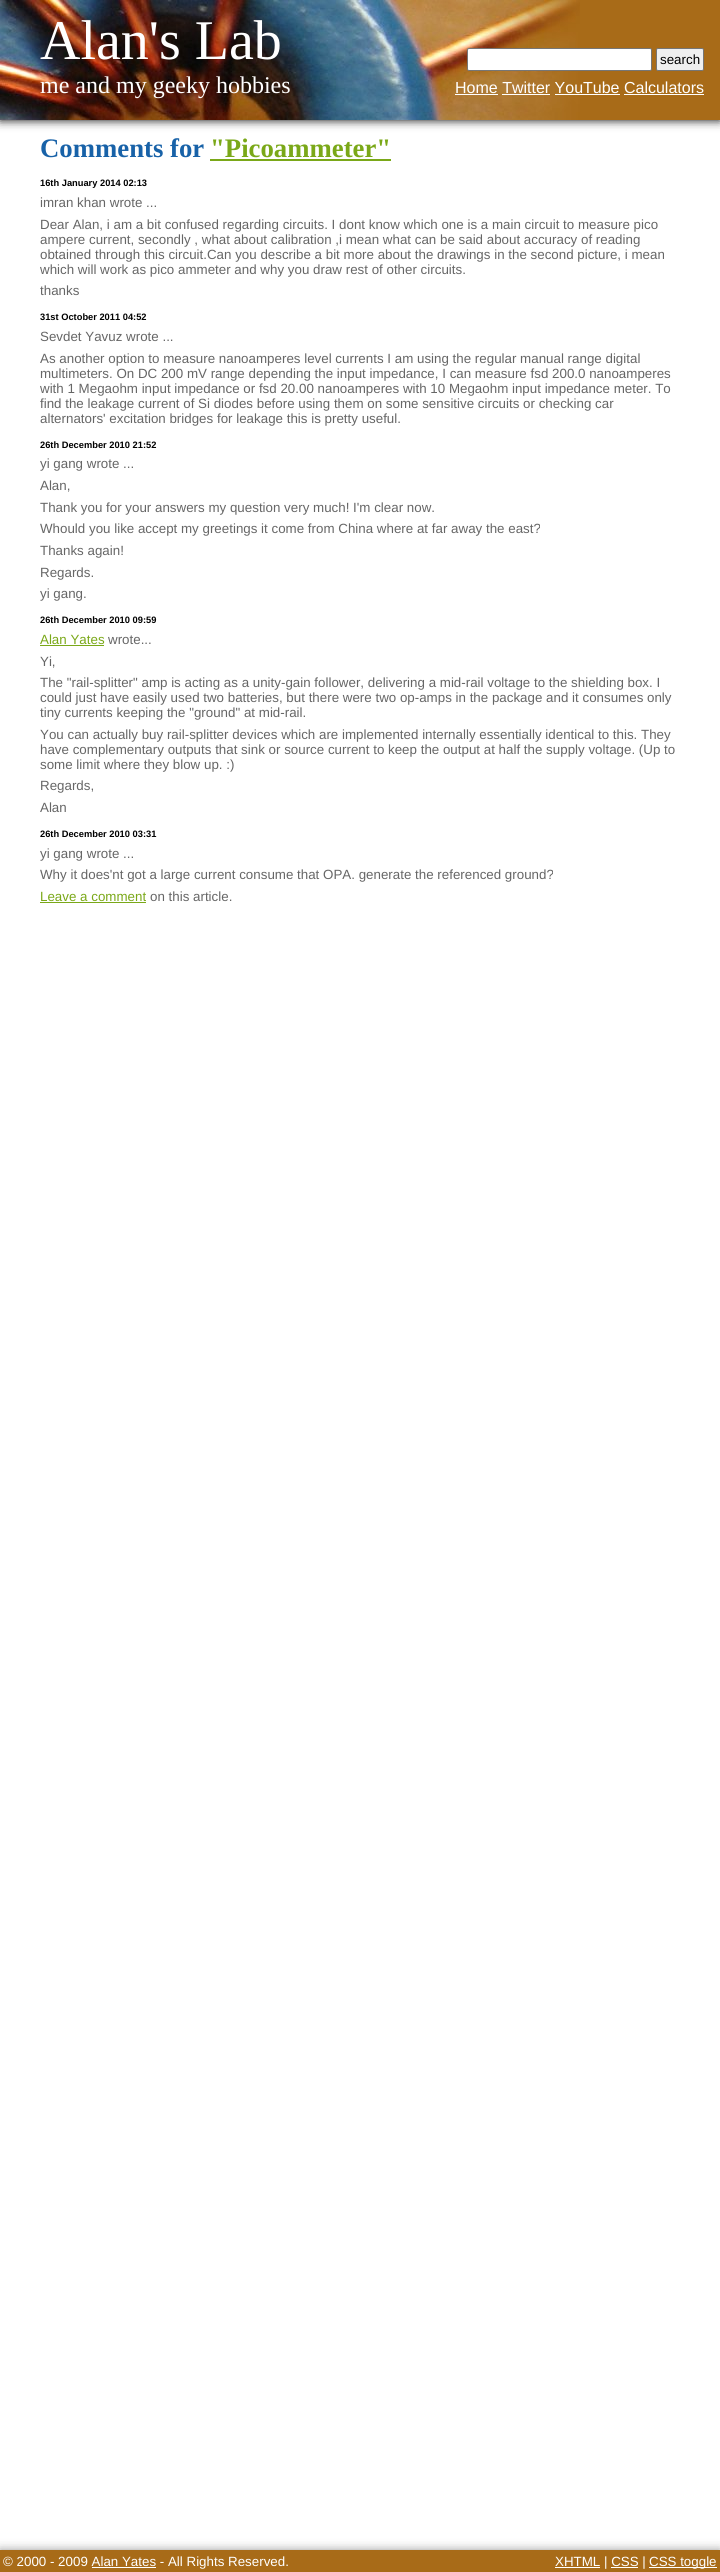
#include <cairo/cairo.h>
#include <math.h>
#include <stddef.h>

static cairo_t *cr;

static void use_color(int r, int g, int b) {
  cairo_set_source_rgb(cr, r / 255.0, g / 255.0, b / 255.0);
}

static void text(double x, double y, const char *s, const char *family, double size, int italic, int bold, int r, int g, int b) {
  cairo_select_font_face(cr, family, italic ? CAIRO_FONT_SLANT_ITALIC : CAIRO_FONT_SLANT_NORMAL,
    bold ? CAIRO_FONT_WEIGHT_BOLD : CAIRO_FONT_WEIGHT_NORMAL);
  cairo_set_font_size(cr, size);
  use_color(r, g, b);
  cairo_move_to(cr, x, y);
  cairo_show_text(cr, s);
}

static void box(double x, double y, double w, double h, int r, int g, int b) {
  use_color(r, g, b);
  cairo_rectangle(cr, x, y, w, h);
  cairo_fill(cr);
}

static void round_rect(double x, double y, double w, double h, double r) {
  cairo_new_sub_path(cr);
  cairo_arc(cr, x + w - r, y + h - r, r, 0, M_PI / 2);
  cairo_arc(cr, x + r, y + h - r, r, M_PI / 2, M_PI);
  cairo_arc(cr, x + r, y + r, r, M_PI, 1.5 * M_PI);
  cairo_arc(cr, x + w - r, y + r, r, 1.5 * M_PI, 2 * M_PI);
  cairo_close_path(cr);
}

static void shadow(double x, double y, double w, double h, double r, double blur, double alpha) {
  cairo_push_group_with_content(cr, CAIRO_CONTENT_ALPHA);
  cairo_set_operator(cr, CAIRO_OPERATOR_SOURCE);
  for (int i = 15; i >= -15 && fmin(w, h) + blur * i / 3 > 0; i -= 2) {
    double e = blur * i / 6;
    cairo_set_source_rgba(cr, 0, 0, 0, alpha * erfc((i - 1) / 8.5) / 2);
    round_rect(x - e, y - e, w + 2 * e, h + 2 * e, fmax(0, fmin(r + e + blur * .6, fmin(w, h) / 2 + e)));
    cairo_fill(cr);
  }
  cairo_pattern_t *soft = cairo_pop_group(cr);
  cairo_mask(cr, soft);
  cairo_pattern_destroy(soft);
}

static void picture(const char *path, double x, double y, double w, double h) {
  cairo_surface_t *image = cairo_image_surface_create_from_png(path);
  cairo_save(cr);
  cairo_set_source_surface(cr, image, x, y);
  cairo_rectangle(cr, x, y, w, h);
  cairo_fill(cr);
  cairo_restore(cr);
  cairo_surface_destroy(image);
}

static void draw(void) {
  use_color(255, 255, 255);
  cairo_paint(cr);
  use_color(0, 0, 0);
  shadow(0, 0, 720, 120, 0, 5, 1);
  box(580, 0, 140, 120, 168, 107, 24);
  picture("img_01.png", 0, 0, 580, 120);
  use_color(255, 255, 255);
  round_rect(467.5, 48.5, 184, 22, 1.5);
  cairo_fill_preserve(cr);
  use_color(118, 118, 118);
  cairo_set_line_width(cr, 1);
  cairo_stroke(cr);
  use_color(239, 239, 239);
  round_rect(656.5, 48.5, 47, 22, 1.5);
  cairo_fill_preserve(cr);
  use_color(118, 118, 118);
  cairo_stroke(cr);
  box(455, 94, 43, 1, 255, 255, 255);
  box(502, 94, 48, 1, 255, 255, 255);
  box(555, 94, 65, 1, 255, 255, 255);
  box(624, 94, 80, 1, 255, 255, 255);
  box(210, 159, 181, 2, 122, 168, 24);
  box(40, 645, 64, 1, 122, 168, 24);
  box(40, 902, 106, 1, 122, 168, 24);
  use_color(153, 153, 153);
  shadow(0, 2550, 720, 22, 0, 5, 1);
  box(0, 2550, 720, 22, 168, 107, 24);
  box(92, 2567, 64, 1, 255, 255, 255);
  box(555, 2567, 45, 1, 255, 255, 255);
  box(649, 2567, 68, 1, 255, 255, 255);
  box(611, 2567, 27, 1, 255, 255, 255);
  text(40, 59, "Alan's Lab", "Liberation Serif", 56, 0, 0, 255, 255, 255);
  text(40, 93, "me and my geeky hobbies", "Liberation Serif", 24, 0, 0, 255, 255, 255);
  text(660, 64, "search", "Liberation Sans", 13.35, 0, 0, 0, 0, 0);
  text(455, 93, "Home Twitter YouTube Calculators", "Liberation Sans", 16, 0, 0, 255, 255, 255);
  text(40, 157, "Comments for", "Liberation Serif", 26.75, 0, 1, 24, 98, 168);
  text(210, 157, "\"Picoammeter\"", "Liberation Serif", 26.75, 0, 1, 122, 168, 24);
  text(40, 186, "16th January 2014 02:13", "Liberation Sans", 9.3, 0, 1, 0, 0, 0);
  text(40, 207, "imran khan wrote ...", "Liberation Sans", 13.35, 0, 0, 102, 102, 102);
  text(40, 229, "Dear Alan, i am a bit confused regarding circuits. I dont know which one is a main circuit to measure pico", "Liberation Sans", 13.35, 0, 0, 102, 102, 102);
  text(40, 244, "ampere current, secondly , what about calibration ,i mean what can be said about accuracy of reading", "Liberation Sans", 13.35, 0, 0, 102, 102, 102);
  text(40, 259, "obtained through this circuit.Can you describe a bit more about the drawings in the second picture, i mean", "Liberation Sans", 13.35, 0, 0, 102, 102, 102);
  text(40, 274, "which will work as pico ammeter and why you draw rest of other circuits.", "Liberation Sans", 13.35, 0, 0, 102, 102, 102);
  text(40, 295, "thanks", "Liberation Sans", 13.35, 0, 0, 102, 102, 102);
  text(40, 320, "31st October 2011 04:52", "Liberation Sans", 9.3, 0, 1, 0, 0, 0);
  text(40, 341, "Sevdet Yavuz wrote ...", "Liberation Sans", 13.35, 0, 0, 102, 102, 102);
  text(40, 363, "As another option to measure nanoamperes level currents I am using the regular manual range digital", "Liberation Sans", 13.35, 0, 0, 102, 102, 102);
  text(40, 378, "multimeters. On DC 200 mV range depending the input impedance, I can measure fsd 200.0 nanoamperes", "Liberation Sans", 13.35, 0, 0, 102, 102, 102);
  text(40, 393, "with 1 Megaohm input impedance or fsd 20.00 nanoamperes with 10 Megaohm input impedance meter. To", "Liberation Sans", 13.35, 0, 0, 102, 102, 102);
  text(40, 408, "find the leakage current of Si diodes before using them on some sensitive circuits or checking car", "Liberation Sans", 13.35, 0, 0, 102, 102, 102);
  text(40, 423, "alternators' excitation bridges for leakage this is pretty useful.", "Liberation Sans", 13.35, 0, 0, 102, 102, 102);
  text(40, 448, "26th December 2010 21:52", "Liberation Sans", 9.3, 0, 1, 0, 0, 0);
  text(40, 468, "yi gang wrote ...", "Liberation Sans", 13.35, 0, 0, 102, 102, 102);
  text(40, 490, "Alan,", "Liberation Sans", 13.35, 0, 0, 102, 102, 102);
  text(40, 512, "Thank you for your answers my question very much! I'm clear now.", "Liberation Sans", 13.35, 0, 0, 102, 102, 102);
  text(40, 533, "Whould you like accept my greetings it come from China where at far away the east?", "Liberation Sans", 13.35, 0, 0, 102, 102, 102);
  text(40, 555, "Thanks again!", "Liberation Sans", 13.35, 0, 0, 102, 102, 102);
  text(40, 577, "Regards.", "Liberation Sans", 13.35, 0, 0, 102, 102, 102);
  text(40, 598, "yi gang.", "Liberation Sans", 13.35, 0, 0, 102, 102, 102);
  text(40, 623, "26th December 2010 09:59", "Liberation Sans", 9.3, 0, 1, 0, 0, 0);
  text(40, 644, "Alan Yates", "Liberation Sans", 13.35, 0, 0, 122, 168, 24);
  text(108, 644, "wrote...", "Liberation Sans", 13.35, 0, 0, 102, 102, 102);
  text(40, 666, "Yi,", "Liberation Sans", 13.35, 0, 0, 102, 102, 102);
  text(40, 687, "The \"rail-splitter\" amp is acting as a unity-gain follower, delivering a mid-rail voltage to the shielding box. I", "Liberation Sans", 13.35, 0, 0, 102, 102, 102);
  text(40, 702, "could just have easily used two batteries, but there were two op-amps in the package and it consumes only", "Liberation Sans", 13.35, 0, 0, 102, 102, 102);
  text(40, 717, "tiny currents keeping the \"ground\" at mid-rail.", "Liberation Sans", 13.35, 0, 0, 102, 102, 102);
  text(40, 739, "You can actually buy rail-splitter devices which are implemented internally essentially identical to this. They", "Liberation Sans", 13.35, 0, 0, 102, 102, 102);
  text(40, 754, "have complementary outputs that sink or source current to keep the output at half the supply voltage. (Up to", "Liberation Sans", 13.35, 0, 0, 102, 102, 102);
  text(40, 769, "some limit where they blow up. :)", "Liberation Sans", 13.35, 0, 0, 102, 102, 102);
  text(40, 790, "Regards,", "Liberation Sans", 13.35, 0, 0, 102, 102, 102);
  text(40, 812, "Alan", "Liberation Sans", 13.35, 0, 0, 102, 102, 102);
  text(40, 837, "26th December 2010 03:31", "Liberation Sans", 9.3, 0, 1, 0, 0, 0);
  text(40, 858, "yi gang wrote ...", "Liberation Sans", 13.35, 0, 0, 102, 102, 102);
  text(40, 879, "Why it does'nt got a large current consume that OPA. generate the referenced ground?", "Liberation Sans", 13.35, 0, 0, 102, 102, 102);
  text(40, 901, "Leave a comment", "Liberation Sans", 13.35, 0, 0, 122, 168, 24);
  text(150, 901, "on this article.", "Liberation Sans", 13.35, 0, 0, 102, 102, 102);
  text(3, 2566, "© 2000 - 2009 Alan Yates - All Rights Reserved.", "Liberation Sans", 13.35, 0, 0, 255, 255, 255);
  text(555, 2566, "XHTML | CSS |", "Liberation Sans", 13.35, 0, 0, 255, 255, 255);
  text(649, 2566, "CSS toggle", "Liberation Sans", 13.35, 0, 0, 255, 255, 255);
}

int main(void) {
  cairo_surface_t *surface = cairo_image_surface_create(CAIRO_FORMAT_RGB24, 720, 2572);
  cr = cairo_create(surface);
  cairo_font_options_t *options = cairo_font_options_create();
  cairo_font_options_set_hint_metrics(options, CAIRO_HINT_METRICS_OFF);
  cairo_font_options_set_hint_style(options, CAIRO_HINT_STYLE_NONE);
  cairo_set_font_options(cr, options);
  cairo_set_miter_limit(cr, 4);
  draw();
  cairo_surface_write_to_png(surface, "out.png");
  cairo_font_options_destroy(options);
  cairo_destroy(cr);
  cairo_surface_destroy(surface);
  return 0;
}
